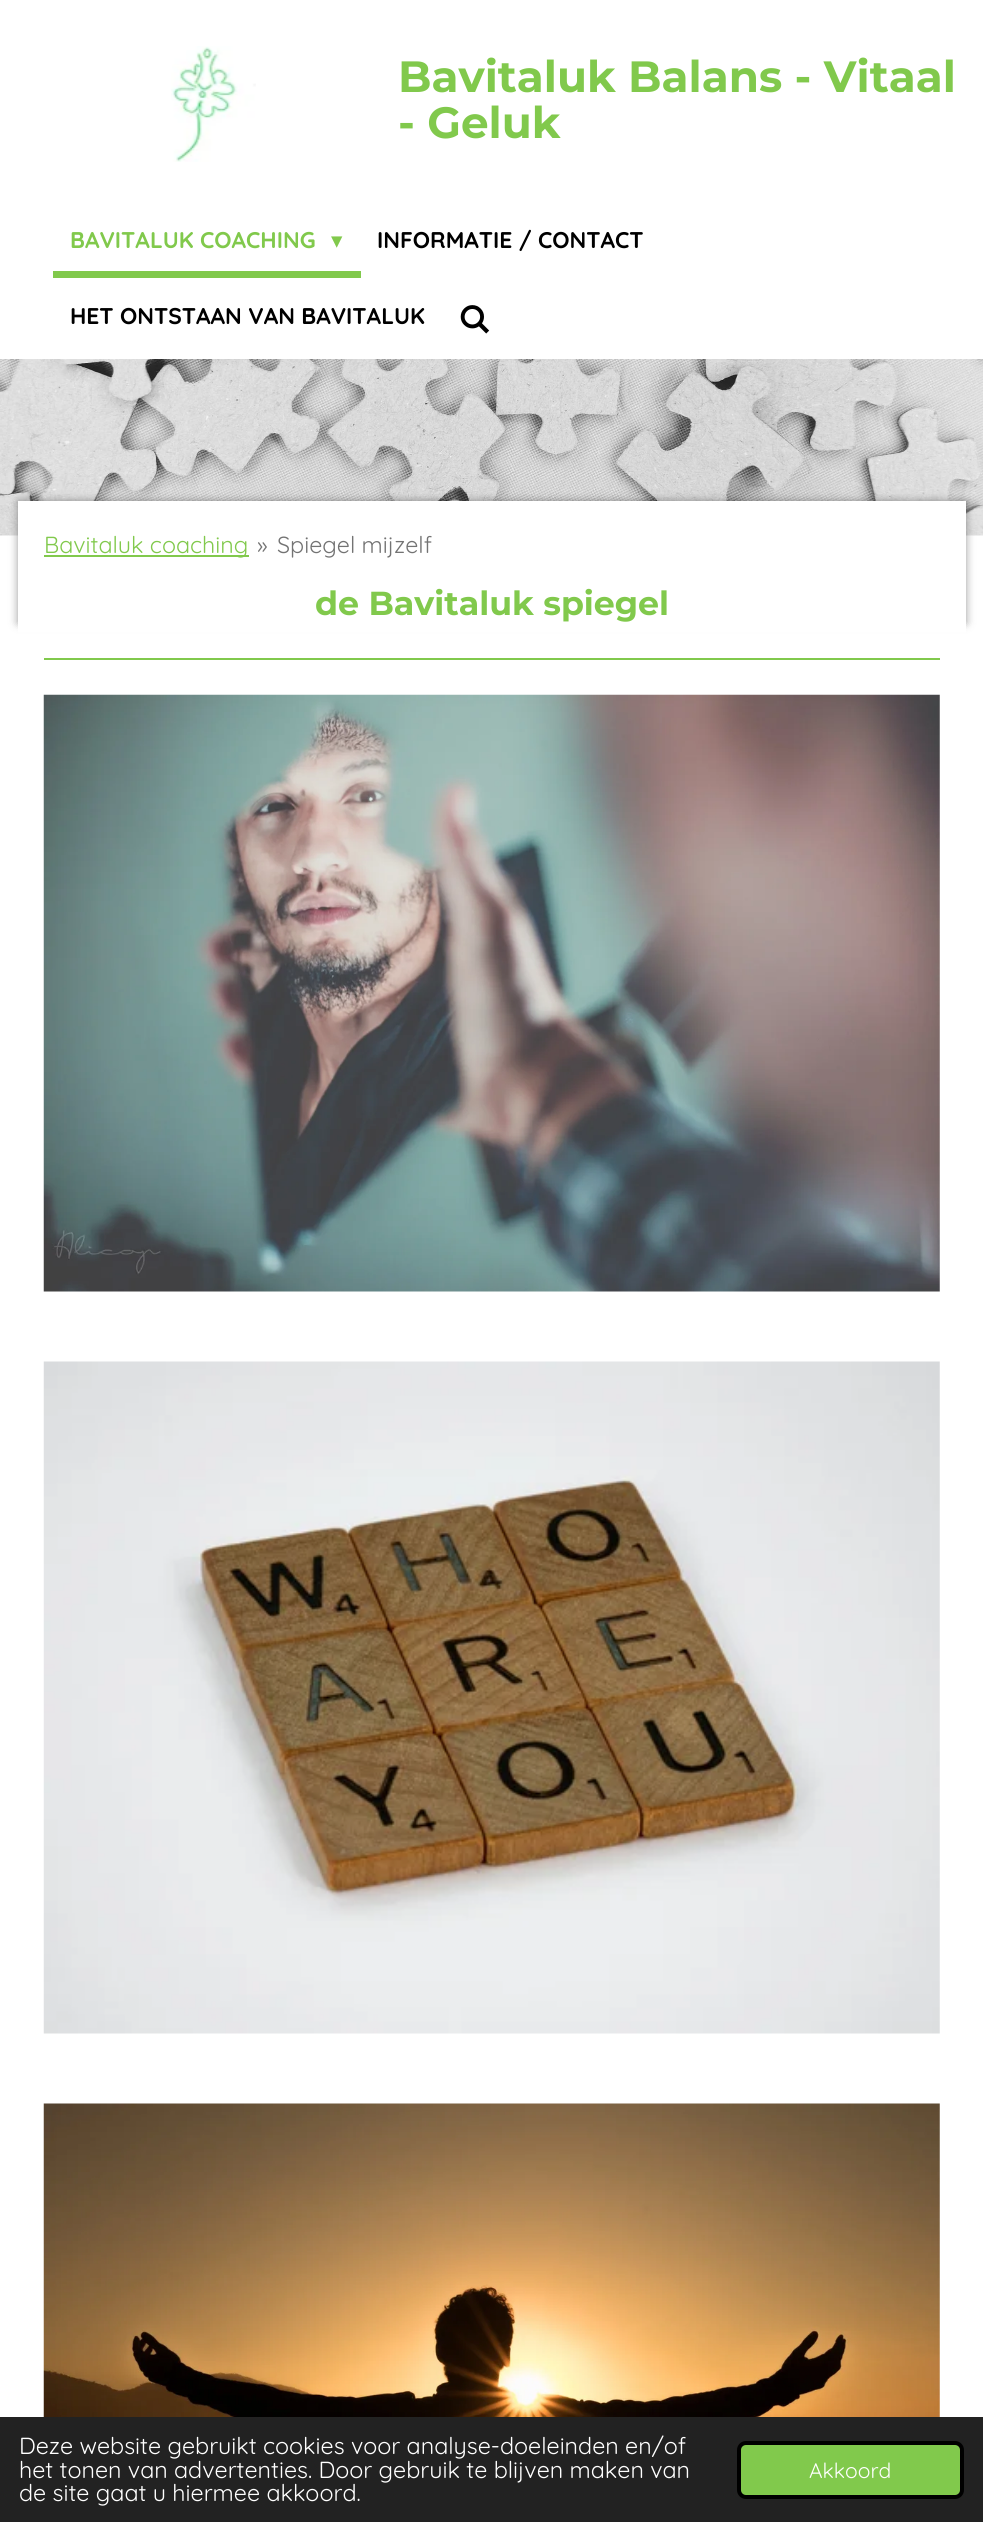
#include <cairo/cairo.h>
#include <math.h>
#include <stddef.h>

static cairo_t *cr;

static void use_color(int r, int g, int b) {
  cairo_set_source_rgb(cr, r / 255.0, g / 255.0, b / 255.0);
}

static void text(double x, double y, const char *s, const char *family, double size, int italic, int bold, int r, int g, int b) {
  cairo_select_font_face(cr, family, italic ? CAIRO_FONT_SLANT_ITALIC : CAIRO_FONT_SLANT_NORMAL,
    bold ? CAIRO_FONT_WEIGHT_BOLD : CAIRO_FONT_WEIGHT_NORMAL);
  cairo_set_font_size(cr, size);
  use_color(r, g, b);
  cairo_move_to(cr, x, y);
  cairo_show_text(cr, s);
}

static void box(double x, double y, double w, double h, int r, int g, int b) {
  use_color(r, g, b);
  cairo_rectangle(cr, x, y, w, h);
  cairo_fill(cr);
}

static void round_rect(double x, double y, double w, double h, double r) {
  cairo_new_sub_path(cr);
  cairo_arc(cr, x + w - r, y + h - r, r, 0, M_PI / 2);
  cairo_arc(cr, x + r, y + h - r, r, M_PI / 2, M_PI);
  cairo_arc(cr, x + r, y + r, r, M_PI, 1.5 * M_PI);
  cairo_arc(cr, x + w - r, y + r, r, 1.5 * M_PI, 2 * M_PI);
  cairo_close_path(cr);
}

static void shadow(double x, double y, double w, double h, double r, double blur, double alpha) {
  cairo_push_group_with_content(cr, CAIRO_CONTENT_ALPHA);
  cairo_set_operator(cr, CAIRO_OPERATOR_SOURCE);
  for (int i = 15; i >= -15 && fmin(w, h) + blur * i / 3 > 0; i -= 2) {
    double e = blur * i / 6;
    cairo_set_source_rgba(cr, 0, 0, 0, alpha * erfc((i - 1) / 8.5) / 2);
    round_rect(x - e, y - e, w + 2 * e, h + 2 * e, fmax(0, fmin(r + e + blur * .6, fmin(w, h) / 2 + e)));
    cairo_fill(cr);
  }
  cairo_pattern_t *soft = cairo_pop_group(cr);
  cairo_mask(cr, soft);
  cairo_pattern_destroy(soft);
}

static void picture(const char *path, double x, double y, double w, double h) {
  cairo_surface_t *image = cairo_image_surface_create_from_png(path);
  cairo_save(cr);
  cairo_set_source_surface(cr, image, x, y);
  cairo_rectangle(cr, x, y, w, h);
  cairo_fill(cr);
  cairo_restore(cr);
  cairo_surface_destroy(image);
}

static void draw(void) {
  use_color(255, 255, 255);
  cairo_paint(cr);
  picture("img_01.png", 171, 46, 85, 116);
  box(53, 271, 308, 7, 129, 201, 76);
  picture("img_02.png", 460, 305, 30, 29);
  picture("img_03.png", 0, 359, 983, 177);
  use_color(0, 0, 0);
  shadow(18, 501, 948, 122, 0, 4.5, 0.4);
  box(18, 501, 948, 131, 255, 255, 255);
  box(44, 555, 205, 2, 129, 201, 76);
  box(44, 658, 896, 2, 129, 201, 76);
  picture("img_04.png", 43, 694, 897, 598);
  picture("img_05.png", 43, 1361, 897, 673);
  picture("img_06.png", 43, 2103, 897, 314);
  box(0, 2417, 983, 105, 34, 34, 34);
  use_color(129, 201, 76);
  round_rect(739, 2443, 223, 54, 7);
  cairo_fill_preserve(cr);
  use_color(0, 0, 0);
  cairo_set_line_width(cr, 4);
  cairo_stroke(cr);
  text(398, 92, "Bavitaluk Balans - Vitaal", "Montserrat", 43.75, 0, 1, 129, 201, 76);
  text(398, 138, "- Geluk", "Montserrat", 43.75, 0, 1, 129, 201, 76);
  text(70, 248, "BAVITALUK COACHING", "Quicksand", 22.75, 0, 1, 129, 201, 76);
  text(331, 248, "▾", "DejaVu Sans", 22.75, 0, 0, 129, 201, 76);
  text(377, 248, "INFORMATIE / CONTACT", "Quicksand", 22.75, 0, 1, 0, 0, 0);
  text(70, 324, "HET ONTSTAAN VAN BAVITALUK", "Quicksand", 22.75, 0, 1, 0, 0, 0);
  text(44, 553, "Bavitaluk coaching", "Quicksand", 23.25, 0, 0, 129, 201, 76);
  text(257, 553, "»", "Quicksand", 23.25, 0, 0, 115, 115, 115);
  text(277, 553, "Spiegel mijzelf", "Quicksand", 23.25, 0, 0, 115, 115, 115);
  text(315, 615, "de Bavitaluk spiegel", "Montserrat", 33.25, 0, 1, 129, 201, 76);
  text(19, 2454, "Deze website gebruikt cookies voor analyse-doeleinden en/of", "Quicksand", 23.25, 0, 0, 255, 255, 255);
  text(19, 2478, "het tonen van advertenties. Door gebruik te blijven maken van", "Quicksand", 23.25, 0, 0, 255, 255, 255);
  text(19, 2501, "de site gaat u hiermee akkoord.", "Quicksand", 23.25, 0, 0, 255, 255, 255);
  text(809, 2478, "Akkoord", "Quicksand", 21, 0, 0, 255, 255, 255);
}

int main(void) {
  cairo_surface_t *surface = cairo_image_surface_create(CAIRO_FORMAT_RGB24, 983, 2522);
  cr = cairo_create(surface);
  cairo_font_options_t *options = cairo_font_options_create();
  cairo_font_options_set_hint_metrics(options, CAIRO_HINT_METRICS_OFF);
  cairo_font_options_set_hint_style(options, CAIRO_HINT_STYLE_NONE);
  cairo_set_font_options(cr, options);
  cairo_set_miter_limit(cr, 4);
  draw();
  cairo_surface_write_to_png(surface, "out.png");
  cairo_font_options_destroy(options);
  cairo_destroy(cr);
  cairo_surface_destroy(surface);
  return 0;
}
